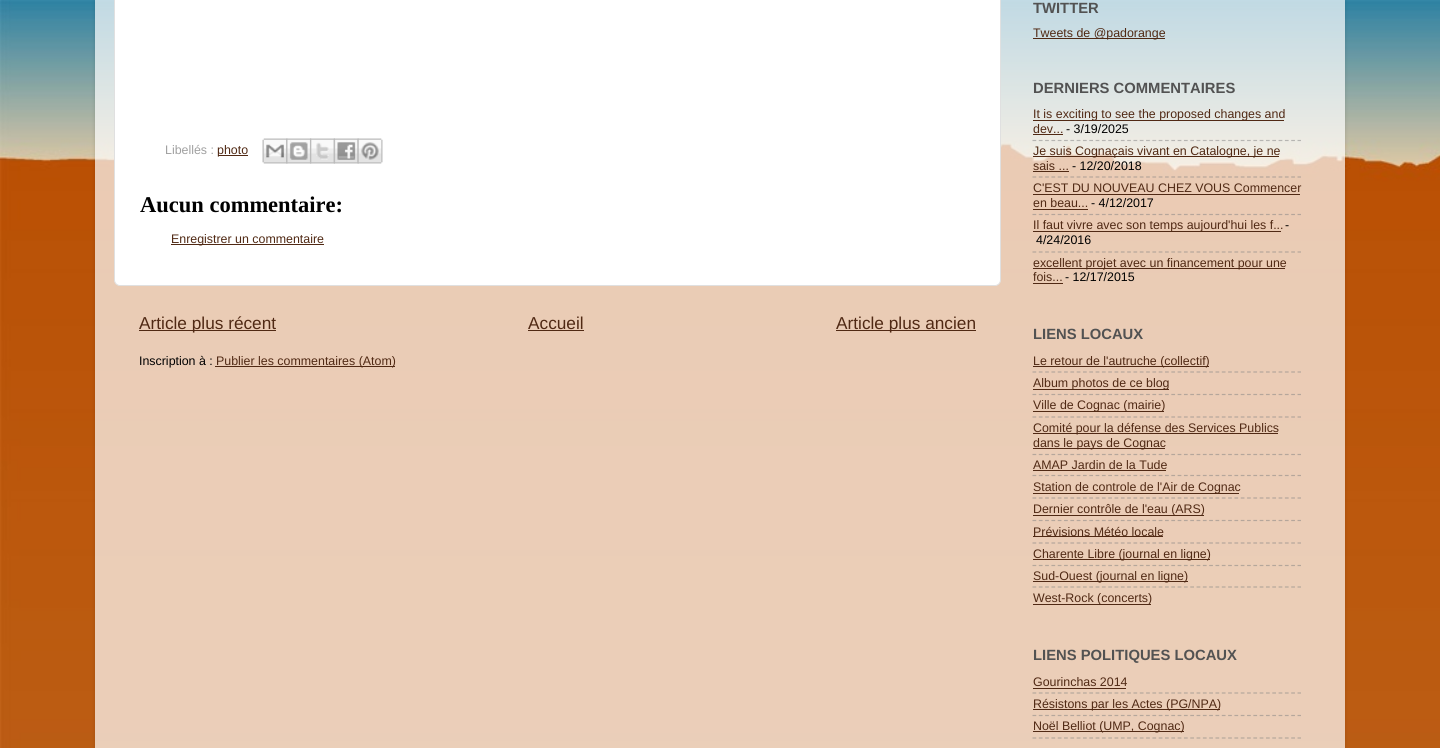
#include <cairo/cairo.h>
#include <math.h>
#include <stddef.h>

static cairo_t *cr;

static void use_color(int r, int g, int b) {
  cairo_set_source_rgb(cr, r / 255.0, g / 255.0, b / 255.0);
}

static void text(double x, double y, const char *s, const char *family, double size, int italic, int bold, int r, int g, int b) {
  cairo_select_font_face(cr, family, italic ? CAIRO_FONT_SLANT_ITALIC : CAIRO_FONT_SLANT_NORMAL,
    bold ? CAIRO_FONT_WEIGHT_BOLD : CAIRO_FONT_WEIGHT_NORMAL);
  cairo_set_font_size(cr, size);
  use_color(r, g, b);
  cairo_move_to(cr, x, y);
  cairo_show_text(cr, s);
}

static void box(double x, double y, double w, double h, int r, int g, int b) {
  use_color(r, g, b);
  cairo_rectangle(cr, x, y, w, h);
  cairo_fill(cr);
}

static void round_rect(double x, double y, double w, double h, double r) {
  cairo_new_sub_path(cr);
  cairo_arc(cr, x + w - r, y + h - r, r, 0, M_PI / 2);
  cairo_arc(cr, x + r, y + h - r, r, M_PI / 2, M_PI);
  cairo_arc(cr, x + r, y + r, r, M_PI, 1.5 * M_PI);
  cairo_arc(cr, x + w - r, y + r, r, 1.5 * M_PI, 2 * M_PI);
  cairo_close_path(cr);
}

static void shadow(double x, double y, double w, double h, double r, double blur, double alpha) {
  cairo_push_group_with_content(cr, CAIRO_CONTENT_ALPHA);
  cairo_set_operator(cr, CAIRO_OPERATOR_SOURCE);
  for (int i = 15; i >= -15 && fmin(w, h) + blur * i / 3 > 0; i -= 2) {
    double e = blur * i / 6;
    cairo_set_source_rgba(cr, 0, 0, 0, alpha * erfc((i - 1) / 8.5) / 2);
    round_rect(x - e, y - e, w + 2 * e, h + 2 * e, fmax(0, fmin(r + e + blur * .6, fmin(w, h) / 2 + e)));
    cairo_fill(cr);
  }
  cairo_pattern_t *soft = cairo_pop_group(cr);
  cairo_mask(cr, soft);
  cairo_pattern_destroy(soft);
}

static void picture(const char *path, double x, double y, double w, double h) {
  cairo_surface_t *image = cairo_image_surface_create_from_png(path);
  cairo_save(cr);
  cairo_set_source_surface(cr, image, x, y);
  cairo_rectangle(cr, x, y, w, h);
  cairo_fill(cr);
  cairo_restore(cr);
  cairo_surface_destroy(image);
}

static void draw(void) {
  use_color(255, 255, 255);
  cairo_paint(cr);
  picture("img_01.png", 0, 0, 1440, 748);
  cairo_save(cr);
  cairo_set_fill_rule(cr, CAIRO_FILL_RULE_EVEN_ODD);
  cairo_new_path(cr);
  cairo_move_to(cr, 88, 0);
  cairo_line_to(cr, 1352, 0);
  cairo_line_to(cr, 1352, 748);
  cairo_line_to(cr, 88, 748);
  cairo_close_path(cr);
  cairo_move_to(cr, 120, -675);
  cairo_line_to(cr, 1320, -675);
  cairo_curve_to(cr, 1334, -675, 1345, -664, 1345, -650);
  cairo_line_to(cr, 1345, 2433);
  cairo_line_to(cr, 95, 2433);
  cairo_line_to(cr, 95, -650);
  cairo_curve_to(cr, 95, -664, 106, -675, 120, -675);
  cairo_close_path(cr);
  cairo_clip(cr);
  use_color(0, 0, 0);
  shadow(95, -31, 1250, 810, 25, 2, 0.15);
  cairo_restore(cr);
  cairo_set_source_rgba(cr, 1, 1, 1, 0.7);
  cairo_rectangle(cr, 95, 0, 1250, 748);
  cairo_fill(cr);
  use_color(255, 255, 255);
  round_rect(114.5, -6.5, 886, 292, 5.5);
  cairo_fill_preserve(cr);
  use_color(224, 224, 224);
  cairo_set_line_width(cr, 1);
  cairo_stroke(cr);
  box(218, 155, 30, 1, 80, 41, 20);
  picture("img_02.png", 262, 138, 26, 26);
  picture("img_03.png", 286, 138, 26, 26);
  picture("img_04.png", 310, 138, 25, 26);
  picture("img_05.png", 333, 138, 26, 26);
  picture("img_06.png", 357, 138, 26, 26);
  box(171, 244, 153, 1, 80, 41, 20);
  box(139, 330, 137, 1, 80, 41, 20);
  box(528, 330, 56, 1, 80, 41, 20);
  box(836, 330, 140, 1, 80, 41, 20);
  box(215, 366, 180, 1, 80, 41, 20);
  box(1033, 38, 132, 1, 80, 41, 20);
  box(1033, 120, 251, 1, 80, 41, 20);
  box(1033, 134, 30, 1, 80, 41, 20);
  cairo_new_path(cr);
  cairo_move_to(cr, 1032.5, 140.5);
  cairo_line_to(cr, 1301, 140.5);
  cairo_set_source_rgba(cr, 0.502, 0.502, 0.502, 0.5);
  cairo_set_line_width(cr, 1.2);
  cairo_set_dash(cr, (double[]){3.75, 2.56}, 2, 0);
  cairo_stroke(cr);
  box(1033, 156, 246, 1, 80, 41, 20);
  box(1033, 171, 36, 1, 80, 41, 20);
  cairo_new_path(cr);
  cairo_move_to(cr, 1032.5, 177);
  cairo_line_to(cr, 1301, 177);
  use_color(181, 165, 154);
  cairo_stroke(cr);
  box(1033, 194, 267, 1, 80, 41, 20);
  box(1033, 209, 55, 1, 80, 41, 20);
  cairo_new_path(cr);
  cairo_move_to(cr, 1032.5, 214.5);
  cairo_line_to(cr, 1301, 214.5);
  use_color(181, 165, 154);
  cairo_stroke(cr);
  box(1033, 231, 248, 1, 80, 41, 20);
  cairo_new_path(cr);
  cairo_move_to(cr, 1032.5, 252);
  cairo_line_to(cr, 1301, 252);
  use_color(181, 166, 154);
  cairo_stroke(cr);
  box(1033, 268, 252, 1, 80, 41, 20);
  box(1033, 283, 30, 1, 80, 41, 20);
  box(1033, 366, 176, 1, 80, 41, 20);
  cairo_new_path(cr);
  cairo_move_to(cr, 1032.5, 372);
  cairo_line_to(cr, 1301, 372);
  use_color(181, 166, 155);
  cairo_stroke(cr);
  box(1033, 389, 136, 1, 80, 41, 20);
  cairo_new_path(cr);
  cairo_move_to(cr, 1032.5, 394.5);
  cairo_line_to(cr, 1301, 394.5);
  use_color(181, 166, 155);
  cairo_stroke(cr);
  box(1033, 411, 131, 1, 80, 41, 20);
  cairo_new_path(cr);
  cairo_move_to(cr, 1032.5, 417);
  cairo_line_to(cr, 1301, 417);
  use_color(181, 166, 155);
  cairo_stroke(cr);
  box(1033, 433, 245, 1, 80, 41, 20);
  box(1033, 448, 132, 1, 80, 41, 20);
  cairo_new_path(cr);
  cairo_move_to(cr, 1032.5, 454.5);
  cairo_line_to(cr, 1301, 454.5);
  use_color(181, 166, 155);
  cairo_stroke(cr);
  box(1033, 470, 133, 1, 80, 41, 20);
  cairo_new_path(cr);
  cairo_move_to(cr, 1032.5, 475.5);
  cairo_line_to(cr, 1301, 475.5);
  use_color(181, 166, 155);
  cairo_stroke(cr);
  box(1033, 493, 206, 1, 80, 41, 20);
  cairo_new_path(cr);
  cairo_move_to(cr, 1032.5, 498);
  cairo_line_to(cr, 1301, 498);
  use_color(181, 166, 155);
  cairo_stroke(cr);
  box(1033, 515, 171, 1, 80, 41, 20);
  cairo_new_path(cr);
  cairo_move_to(cr, 1032.5, 520.5);
  cairo_line_to(cr, 1301, 520.5);
  use_color(181, 166, 155);
  cairo_stroke(cr);
  box(1033, 536, 130, 1, 80, 41, 20);
  cairo_new_path(cr);
  cairo_move_to(cr, 1032.5, 543);
  cairo_line_to(cr, 1301, 543);
  use_color(181, 166, 155);
  cairo_stroke(cr);
  box(1033, 559, 177, 1, 80, 41, 20);
  cairo_new_path(cr);
  cairo_move_to(cr, 1032.5, 565.5);
  cairo_line_to(cr, 1301, 565.5);
  use_color(181, 167, 155);
  cairo_stroke(cr);
  box(1033, 581, 155, 1, 80, 41, 20);
  cairo_new_path(cr);
  cairo_move_to(cr, 1032.5, 587);
  cairo_line_to(cr, 1301, 587);
  use_color(181, 167, 155);
  cairo_stroke(cr);
  box(1033, 604, 118, 1, 80, 41, 20);
  box(1033, 688, 93, 1, 80, 41, 20);
  cairo_new_path(cr);
  cairo_move_to(cr, 1032.5, 693);
  cairo_line_to(cr, 1301, 693);
  use_color(181, 167, 156);
  cairo_stroke(cr);
  box(1033, 709, 187, 1, 80, 41, 20);
  cairo_new_path(cr);
  cairo_move_to(cr, 1032.5, 715.5);
  cairo_line_to(cr, 1301, 715.5);
  use_color(181, 167, 156);
  cairo_stroke(cr);
  box(1033, 731, 151, 1, 80, 41, 20);
  cairo_new_path(cr);
  cairo_move_to(cr, 1032.5, 738);
  cairo_line_to(cr, 1301, 738);
  use_color(181, 167, 156);
  cairo_stroke(cr);
  text(165, 154, "Libellés :", "Liberation Sans", 12.4, 0, 0, 160, 160, 160);
  text(217, 154, "photo", "Liberation Sans", 12.4, 0, 0, 80, 41, 20);
  text(140, 212, "Aucun commentaire:", "Liberation Serif", 22.5, 0, 1, 0, 0, 0);
  text(171, 243, "Enregistrer un commentaire", "Liberation Sans", 12.4, 0, 0, 80, 41, 20);
  text(139, 329, "Article plus récent", "Liberation Sans", 17.25, 0, 0, 80, 41, 20);
  text(528, 329, "Accueil", "Liberation Sans", 17.25, 0, 0, 80, 41, 20);
  text(836, 329, "Article plus ancien", "Liberation Sans", 17.25, 0, 0, 80, 41, 20);
  text(139, 365, "Inscription à :", "Liberation Sans", 12.4, 0, 0, 0, 0, 0);
  text(216, 365, "Publier les commentaires (Atom)", "Liberation Sans", 12.4, 0, 0, 80, 41, 20);
  text(1033, 13, "TWITTER", "Liberation Sans", 14.8, 0, 1, 82, 82, 82);
  text(1033, 37, "Tweets de @padorange", "Liberation Sans", 12.4, 0, 0, 80, 41, 20);
  text(1033, 93, "DERNIERS COMMENTAIRES", "Liberation Sans", 14.8, 0, 1, 82, 82, 82);
  text(1033, 118, "It is exciting to see the proposed changes and", "Liberation Sans", 12.4, 0, 0, 80, 41, 20);
  text(1033, 133, "dev...", "Liberation Sans", 12.4, 0, 0, 80, 41, 20);
  text(1066, 133, "- 3/19/2025", "Liberation Sans", 12.4, 0, 0, 0, 0, 0);
  text(1033, 155, "Je suis Cognaçais vivant en Catalogne, je ne", "Liberation Sans", 12.4, 0, 0, 80, 41, 20);
  text(1033, 170, "sais ...", "Liberation Sans", 12.4, 0, 0, 80, 41, 20);
  text(1072, 170, "- 12/20/2018", "Liberation Sans", 12.4, 0, 0, 0, 0, 0);
  text(1033, 192, "C'EST DU NOUVEAU CHEZ VOUS Commencer", "Liberation Sans", 12.4, 0, 0, 80, 41, 20);
  text(1033, 207, "en beau...", "Liberation Sans", 12.4, 0, 0, 80, 41, 20);
  text(1091, 207, "- 4/12/2017", "Liberation Sans", 12.4, 0, 0, 0, 0, 0);
  text(1033, 229, "Il faut vivre avec son temps aujourd'hui les f...", "Liberation Sans", 12.4, 0, 0, 80, 41, 20);
  text(1285, 229, "-", "Liberation Sans", 12.4, 0, 0, 0, 0, 0);
  text(1036, 244, "4/24/2016", "Liberation Sans", 12.4, 0, 0, 0, 0, 0);
  text(1033, 267, "excellent projet avec un financement pour une", "Liberation Sans", 12.4, 0, 0, 80, 41, 20);
  text(1033, 281, "fois...", "Liberation Sans", 12.4, 0, 0, 80, 41, 20);
  text(1065, 281, "- 12/17/2015", "Liberation Sans", 12.4, 0, 0, 0, 0, 0);
  text(1033, 339, "LIENS LOCAUX", "Liberation Sans", 14.8, 0, 1, 82, 82, 82);
  text(1033, 365, "Le retour de l'autruche (collectif)", "Liberation Sans", 12.4, 0, 0, 80, 41, 20);
  text(1033, 387, "Album photos de ce blog", "Liberation Sans", 12.4, 0, 0, 80, 41, 20);
  text(1033, 409, "Ville de Cognac (mairie)", "Liberation Sans", 12.4, 0, 0, 80, 41, 20);
  text(1033, 432, "Comité pour la défense des Services Publics", "Liberation Sans", 12.4, 0, 0, 80, 41, 20);
  text(1033, 447, "dans le pays de Cognac", "Liberation Sans", 12.4, 0, 0, 80, 41, 20);
  text(1033, 469, "AMAP Jardin de la Tude", "Liberation Sans", 12.4, 0, 0, 80, 41, 20);
  text(1033, 491, "Station de controle de l'Air de Cognac", "Liberation Sans", 12.4, 0, 0, 80, 41, 20);
  text(1033, 513, "Dernier contrôle de l'eau (ARS)", "Liberation Sans", 12.4, 0, 0, 80, 41, 20);
  text(1033, 536, "Prévisions Météo locale", "Liberation Sans", 12.4, 0, 0, 80, 41, 20);
  text(1033, 558, "Charente Libre (journal en ligne)", "Liberation Sans", 12.4, 0, 0, 80, 41, 20);
  text(1033, 580, "Sud-Ouest (journal en ligne)", "Liberation Sans", 12.4, 0, 0, 80, 41, 20);
  text(1033, 602, "West-Rock (concerts)", "Liberation Sans", 12.4, 0, 0, 80, 41, 20);
  text(1033, 660, "LIENS POLITIQUES LOCAUX", "Liberation Sans", 14.8, 0, 1, 82, 82, 82);
  text(1033, 686, "Gourinchas 2014", "Liberation Sans", 12.4, 0, 0, 80, 41, 20);
  text(1033, 708, "Résistons par les Actes (PG/NPA)", "Liberation Sans", 12.4, 0, 0, 80, 41, 20);
  text(1033, 730, "Noël Belliot (UMP, Cognac)", "Liberation Sans", 12.4, 0, 0, 80, 41, 20);
}

int main(void) {
  cairo_surface_t *surface = cairo_image_surface_create(CAIRO_FORMAT_RGB24, 1440, 748);
  cr = cairo_create(surface);
  cairo_font_options_t *options = cairo_font_options_create();
  cairo_font_options_set_hint_metrics(options, CAIRO_HINT_METRICS_OFF);
  cairo_font_options_set_hint_style(options, CAIRO_HINT_STYLE_NONE);
  cairo_set_font_options(cr, options);
  cairo_set_miter_limit(cr, 4);
  draw();
  cairo_surface_write_to_png(surface, "out.png");
  cairo_font_options_destroy(options);
  cairo_destroy(cr);
  cairo_surface_destroy(surface);
  return 0;
}
